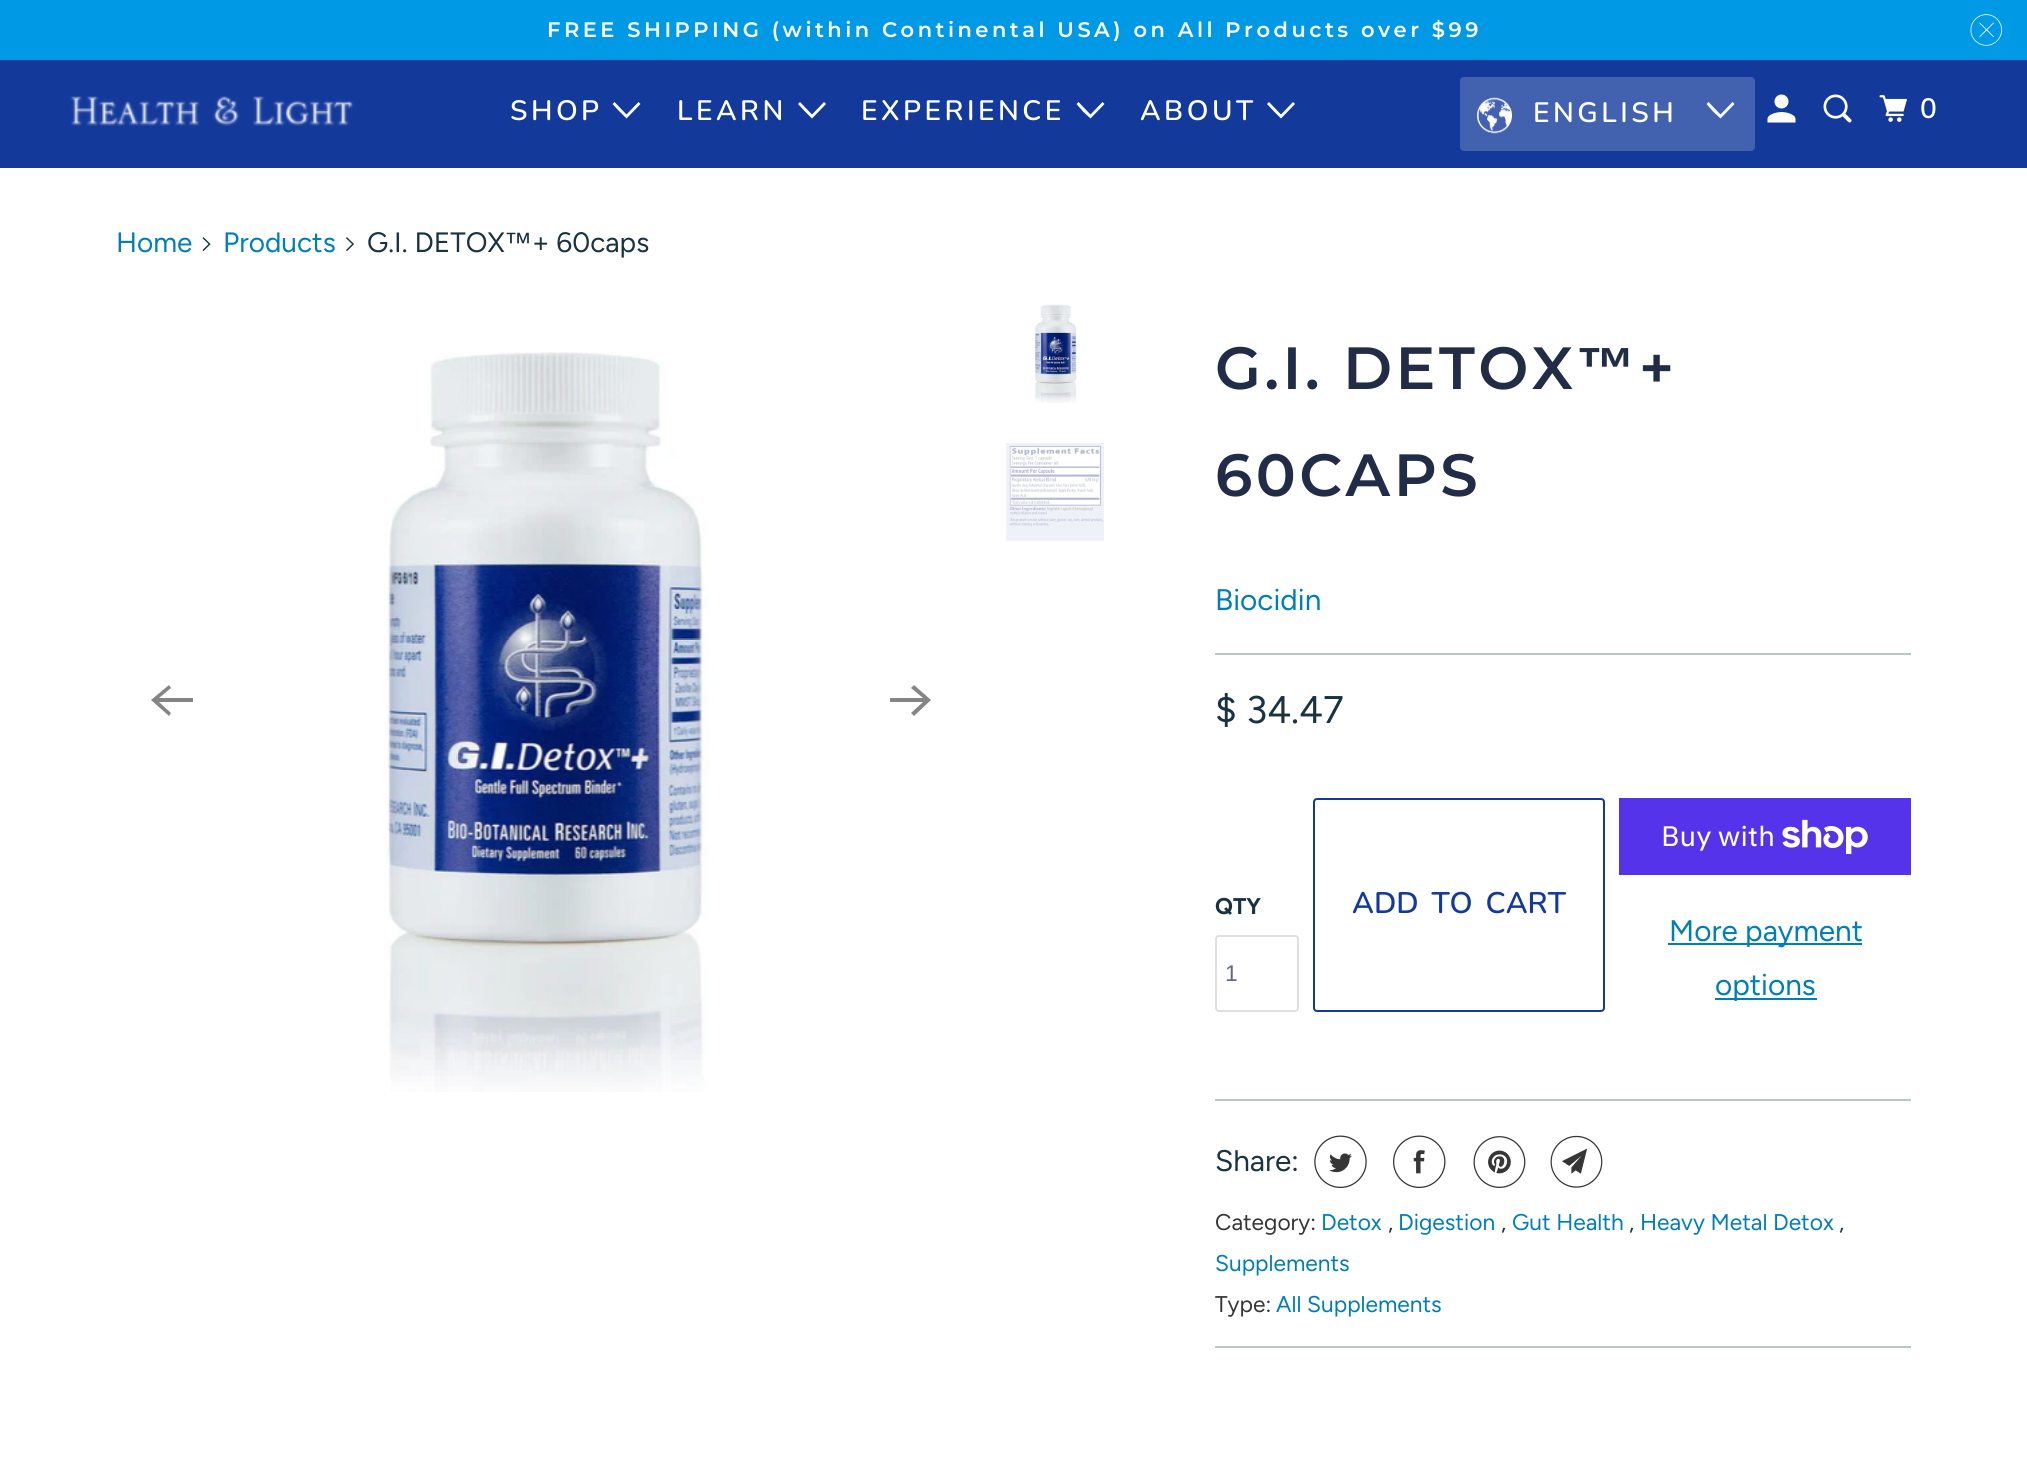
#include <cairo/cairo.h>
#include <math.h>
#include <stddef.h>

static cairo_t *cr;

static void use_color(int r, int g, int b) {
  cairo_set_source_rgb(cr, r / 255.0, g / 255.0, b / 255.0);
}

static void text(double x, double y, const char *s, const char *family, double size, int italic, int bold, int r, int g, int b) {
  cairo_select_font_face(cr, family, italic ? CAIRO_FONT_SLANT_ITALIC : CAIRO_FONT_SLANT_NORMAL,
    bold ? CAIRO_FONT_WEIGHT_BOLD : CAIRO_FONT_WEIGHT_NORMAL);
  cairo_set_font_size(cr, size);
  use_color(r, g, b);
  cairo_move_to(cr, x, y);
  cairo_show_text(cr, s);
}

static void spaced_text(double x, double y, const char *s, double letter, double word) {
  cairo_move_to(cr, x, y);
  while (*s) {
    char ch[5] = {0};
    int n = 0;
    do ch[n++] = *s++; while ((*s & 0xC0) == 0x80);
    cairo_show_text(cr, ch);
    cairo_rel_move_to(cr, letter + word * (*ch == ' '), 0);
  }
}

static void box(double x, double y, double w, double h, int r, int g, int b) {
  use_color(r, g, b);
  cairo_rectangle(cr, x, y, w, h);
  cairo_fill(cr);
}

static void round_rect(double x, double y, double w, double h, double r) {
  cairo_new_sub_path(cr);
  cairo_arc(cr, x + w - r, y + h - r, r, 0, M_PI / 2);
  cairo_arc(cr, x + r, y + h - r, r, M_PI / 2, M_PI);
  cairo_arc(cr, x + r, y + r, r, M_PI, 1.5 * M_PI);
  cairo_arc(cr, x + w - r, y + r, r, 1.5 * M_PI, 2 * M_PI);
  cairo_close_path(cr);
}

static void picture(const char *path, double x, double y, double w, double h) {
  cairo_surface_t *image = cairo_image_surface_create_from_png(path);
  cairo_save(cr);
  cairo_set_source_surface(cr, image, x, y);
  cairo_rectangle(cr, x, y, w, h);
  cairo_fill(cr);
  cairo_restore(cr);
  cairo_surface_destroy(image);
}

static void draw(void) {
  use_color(255, 255, 255);
  cairo_paint(cr);
  box(0, 0, 2027, 60, 0, 153, 229);
  picture("img_01.png", 1970, 14, 32, 32);
  box(0, 60, 2027, 108, 19, 57, 155);
  picture("img_02.png", 70, 96, 284, 30);
  use_color(255, 255, 255);
  cairo_new_path(cr);
  cairo_move_to(cr, 619.5, 111.5);
  cairo_line_to(cr, 612.5, 104);
  cairo_line_to(cr, 614.5, 102);
  cairo_line_to(cr, 626.5, 114.5);
  cairo_line_to(cr, 638.5, 102);
  cairo_line_to(cr, 640.5, 104);
  cairo_line_to(cr, 626.5, 118.5);
  cairo_close_path(cr);
  cairo_fill(cr);
  cairo_new_path(cr);
  cairo_move_to(cr, 805, 111.5);
  cairo_line_to(cr, 798, 104);
  cairo_line_to(cr, 800, 102);
  cairo_line_to(cr, 812, 114.5);
  cairo_line_to(cr, 824, 102);
  cairo_line_to(cr, 826, 104);
  cairo_line_to(cr, 812, 118.5);
  cairo_close_path(cr);
  cairo_fill(cr);
  cairo_new_path(cr);
  cairo_move_to(cr, 1083, 111.5);
  cairo_line_to(cr, 1076.5, 104);
  cairo_line_to(cr, 1078.5, 102);
  cairo_line_to(cr, 1090.5, 114.5);
  cairo_line_to(cr, 1102.5, 102);
  cairo_line_to(cr, 1104.5, 104);
  cairo_line_to(cr, 1090.5, 118.5);
  cairo_close_path(cr);
  cairo_fill(cr);
  cairo_new_path(cr);
  cairo_move_to(cr, 1274, 111.5);
  cairo_line_to(cr, 1267, 104);
  cairo_line_to(cr, 1269, 102);
  cairo_line_to(cr, 1281, 114.5);
  cairo_line_to(cr, 1293, 102);
  cairo_line_to(cr, 1295, 104);
  cairo_line_to(cr, 1281, 118.5);
  cairo_close_path(cr);
  cairo_fill(cr);
  use_color(66, 97, 175);
  round_rect(1460, 77, 295, 74, 4);
  cairo_fill(cr);
  picture("img_03.png", 1477, 97, 35, 37);
  use_color(255, 255, 255);
  cairo_new_path(cr);
  cairo_move_to(cr, 1713, 111.5);
  cairo_line_to(cr, 1706.5, 104);
  cairo_line_to(cr, 1708.5, 102);
  cairo_line_to(cr, 1720.5, 114.5);
  cairo_line_to(cr, 1732.5, 102);
  cairo_line_to(cr, 1734.5, 104);
  cairo_line_to(cr, 1720.5, 118.5);
  cairo_close_path(cr);
  cairo_fill(cr);
  picture("img_04.png", 1767, 94, 29, 29);
  picture("img_05.png", 1823, 94, 29, 29);
  picture("img_06.png", 1879, 95, 28, 27);
  picture("img_07.png", 202, 237, 9, 14);
  picture("img_08.png", 346, 237, 8, 14);
  use_color(133, 133, 133);
  cairo_new_path(cr);
  cairo_move_to(cr, 193, 698);
  cairo_line_to(cr, 159, 698);
  cairo_line_to(cr, 171, 688);
  cairo_line_to(cr, 169, 685);
  cairo_line_to(cr, 151, 700);
  cairo_line_to(cr, 169, 716);
  cairo_line_to(cr, 171, 713);
  cairo_line_to(cr, 159, 702);
  cairo_line_to(cr, 193, 702);
  cairo_close_path(cr);
  cairo_fill(cr);
  picture("img_09.png", 386, 352, 323, 740);
  cairo_new_path(cr);
  cairo_move_to(cr, 890, 702);
  cairo_line_to(cr, 923, 702);
  cairo_line_to(cr, 911, 713);
  cairo_line_to(cr, 914, 716);
  cairo_line_to(cr, 931, 700);
  cairo_line_to(cr, 914, 685);
  cairo_line_to(cr, 911, 688);
  cairo_line_to(cr, 923, 698);
  cairo_line_to(cr, 890, 698);
  cairo_close_path(cr);
  cairo_fill(cr);
  picture("img_10.png", 1035, 304, 42, 99);
  picture("img_11.png", 1006, 443, 98, 98);
  box(1215, 653, 696, 2, 184, 198, 198);
  round_rect(1216, 936, 82, 75, 3);
  use_color(223, 223, 223);
  cairo_stroke(cr);
  round_rect(1314, 799, 290, 212, 3);
  use_color(19, 57, 155);
  cairo_stroke(cr);
  box(1619, 798, 292, 77, 84, 51, 235);
  picture("img_12.png", 1782, 819, 86, 35);
  box(1668, 943, 194, 2, 0, 126, 183);
  box(1715, 998, 102, 2, 0, 126, 183);
  box(1215, 1099, 696, 2, 184, 198, 198);
  picture("img_13.png", 1314, 1135, 53, 53);
  picture("img_14.png", 1393, 1135, 53, 53);
  picture("img_15.png", 1473, 1136, 53, 52);
  picture("img_16.png", 1550, 1135, 53, 53);
  box(1215, 1346, 696, 2, 184, 198, 198);
  cairo_select_font_face(cr, "Montserrat SemiBold", CAIRO_FONT_SLANT_NORMAL, CAIRO_FONT_WEIGHT_NORMAL);
  cairo_set_font_size(cr, 21);
  use_color(255, 255, 255);
  spaced_text(547, 37, "FREE SHIPPING (within Continental USA) on All Products over $99", 3.5, 0);
  cairo_select_font_face(cr, "Nunito SemiBold", CAIRO_FONT_SLANT_NORMAL, CAIRO_FONT_WEIGHT_NORMAL);
  cairo_set_font_size(cr, 28);
  spaced_text(510, 120, "SHOP", 3.5, 0);
  spaced_text(677, 120, "LEARN", 3.5, 0);
  spaced_text(861, 120, "EXPERIENCE", 3.5, 0);
  spaced_text(1140, 120, "ABOUT", 3.5, 0);
  spaced_text(1533, 122, "ENGLISH", 3.5, 0);
  spaced_text(1920, 118, "0", 3.5, 0);
  text(116, 252, "Home", "Figtree", 28, 0, 0, 0, 126, 183);
  text(223, 252, "Products", "Figtree", 28, 0, 0, 0, 126, 183);
  text(367, 252, "G.I. DETOX", "Figtree", 28, 0, 0, 25, 51, 66);
  text(504, 252, "™", "Liberation Sans", 28, 0, 0, 25, 51, 66);
  text(532, 252, "+ 60caps", "Figtree", 28, 0, 0, 25, 51, 66);
  cairo_select_font_face(cr, "Montserrat SemiBold", CAIRO_FONT_SLANT_NORMAL, CAIRO_FONT_WEIGHT_NORMAL);
  cairo_set_font_size(cr, 59.5);
  use_color(33, 44, 70);
  spaced_text(1215, 389, "G.I. DETOX", 3.5, 0);
  cairo_select_font_face(cr, "Liberation Sans", CAIRO_FONT_SLANT_NORMAL, CAIRO_FONT_WEIGHT_BOLD);
  spaced_text(1576, 389, "™", 3.5, 0);
  cairo_select_font_face(cr, "Montserrat SemiBold", CAIRO_FONT_SLANT_NORMAL, CAIRO_FONT_WEIGHT_NORMAL);
  spaced_text(1639, 389, "+", 3.5, 0);
  spaced_text(1215, 496, "60CAPS", 3.5, 0);
  text(1215, 610, "Biocidin", "Figtree", 29.75, 0, 0, 0, 126, 183);
  text(1215, 723, "$ 34.47", "Figtree", 38.5, 0, 0, 25, 51, 66);
  text(1215, 914, "QTY", "Figtree", 22.75, 0, 1, 25, 51, 66);
  text(1225, 981, "1", "Liberation Sans", 22.75, 0, 0, 95, 106, 125);
  cairo_select_font_face(cr, "Nunito SemiBold", CAIRO_FONT_SLANT_NORMAL, CAIRO_FONT_WEIGHT_NORMAL);
  cairo_set_font_size(cr, 29.75);
  use_color(19, 57, 155);
  spaced_text(1352, 913, "ADD TO CART", 0, 5);
  text(1661, 846, "Buy with", "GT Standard", 28, 0, 0, 255, 255, 255);
  text(1669, 941, "More payment", "Figtree", 29.75, 0, 0, 0, 126, 183);
  text(1715, 995, "options", "Figtree", 29.75, 0, 0, 0, 126, 183);
  text(1215, 1171, "Share:", "Figtree", 29.75, 0, 0, 25, 51, 66);
  text(1215, 1230, "Category:", "Figtree", 22.75, 0, 0, 54, 54, 54);
  text(1321, 1230, "Detox", "Figtree", 22.75, 0, 0, 0, 126, 183);
  text(1388, 1230, ",", "Figtree", 22.75, 0, 0, 25, 51, 66);
  text(1398, 1230, "Digestion", "Figtree", 22.75, 0, 0, 0, 126, 183);
  text(1501, 1230, ",", "Figtree", 22.75, 0, 0, 25, 51, 66);
  text(1512, 1230, "Gut Health", "Figtree", 22.75, 0, 0, 0, 126, 183);
  text(1629, 1230, ",", "Figtree", 22.75, 0, 0, 25, 51, 66);
  text(1640, 1230, "Heavy Metal Detox", "Figtree", 22.75, 0, 0, 0, 126, 183);
  text(1839, 1230, ",", "Figtree", 22.75, 0, 0, 25, 51, 66);
  text(1215, 1271, "Supplements", "Figtree", 22.75, 0, 0, 0, 126, 183);
  text(1215, 1312, "Type:", "Figtree", 22.75, 0, 0, 54, 54, 54);
  text(1276, 1312, "All Supplements", "Figtree", 22.75, 0, 0, 0, 126, 183);
}

int main(void) {
  cairo_surface_t *surface = cairo_image_surface_create(CAIRO_FORMAT_RGB24, 2027, 1457);
  cr = cairo_create(surface);
  cairo_font_options_t *options = cairo_font_options_create();
  cairo_font_options_set_hint_metrics(options, CAIRO_HINT_METRICS_OFF);
  cairo_font_options_set_hint_style(options, CAIRO_HINT_STYLE_NONE);
  cairo_set_font_options(cr, options);
  cairo_set_miter_limit(cr, 4);
  draw();
  cairo_surface_write_to_png(surface, "out.png");
  cairo_font_options_destroy(options);
  cairo_destroy(cr);
  cairo_surface_destroy(surface);
  return 0;
}
